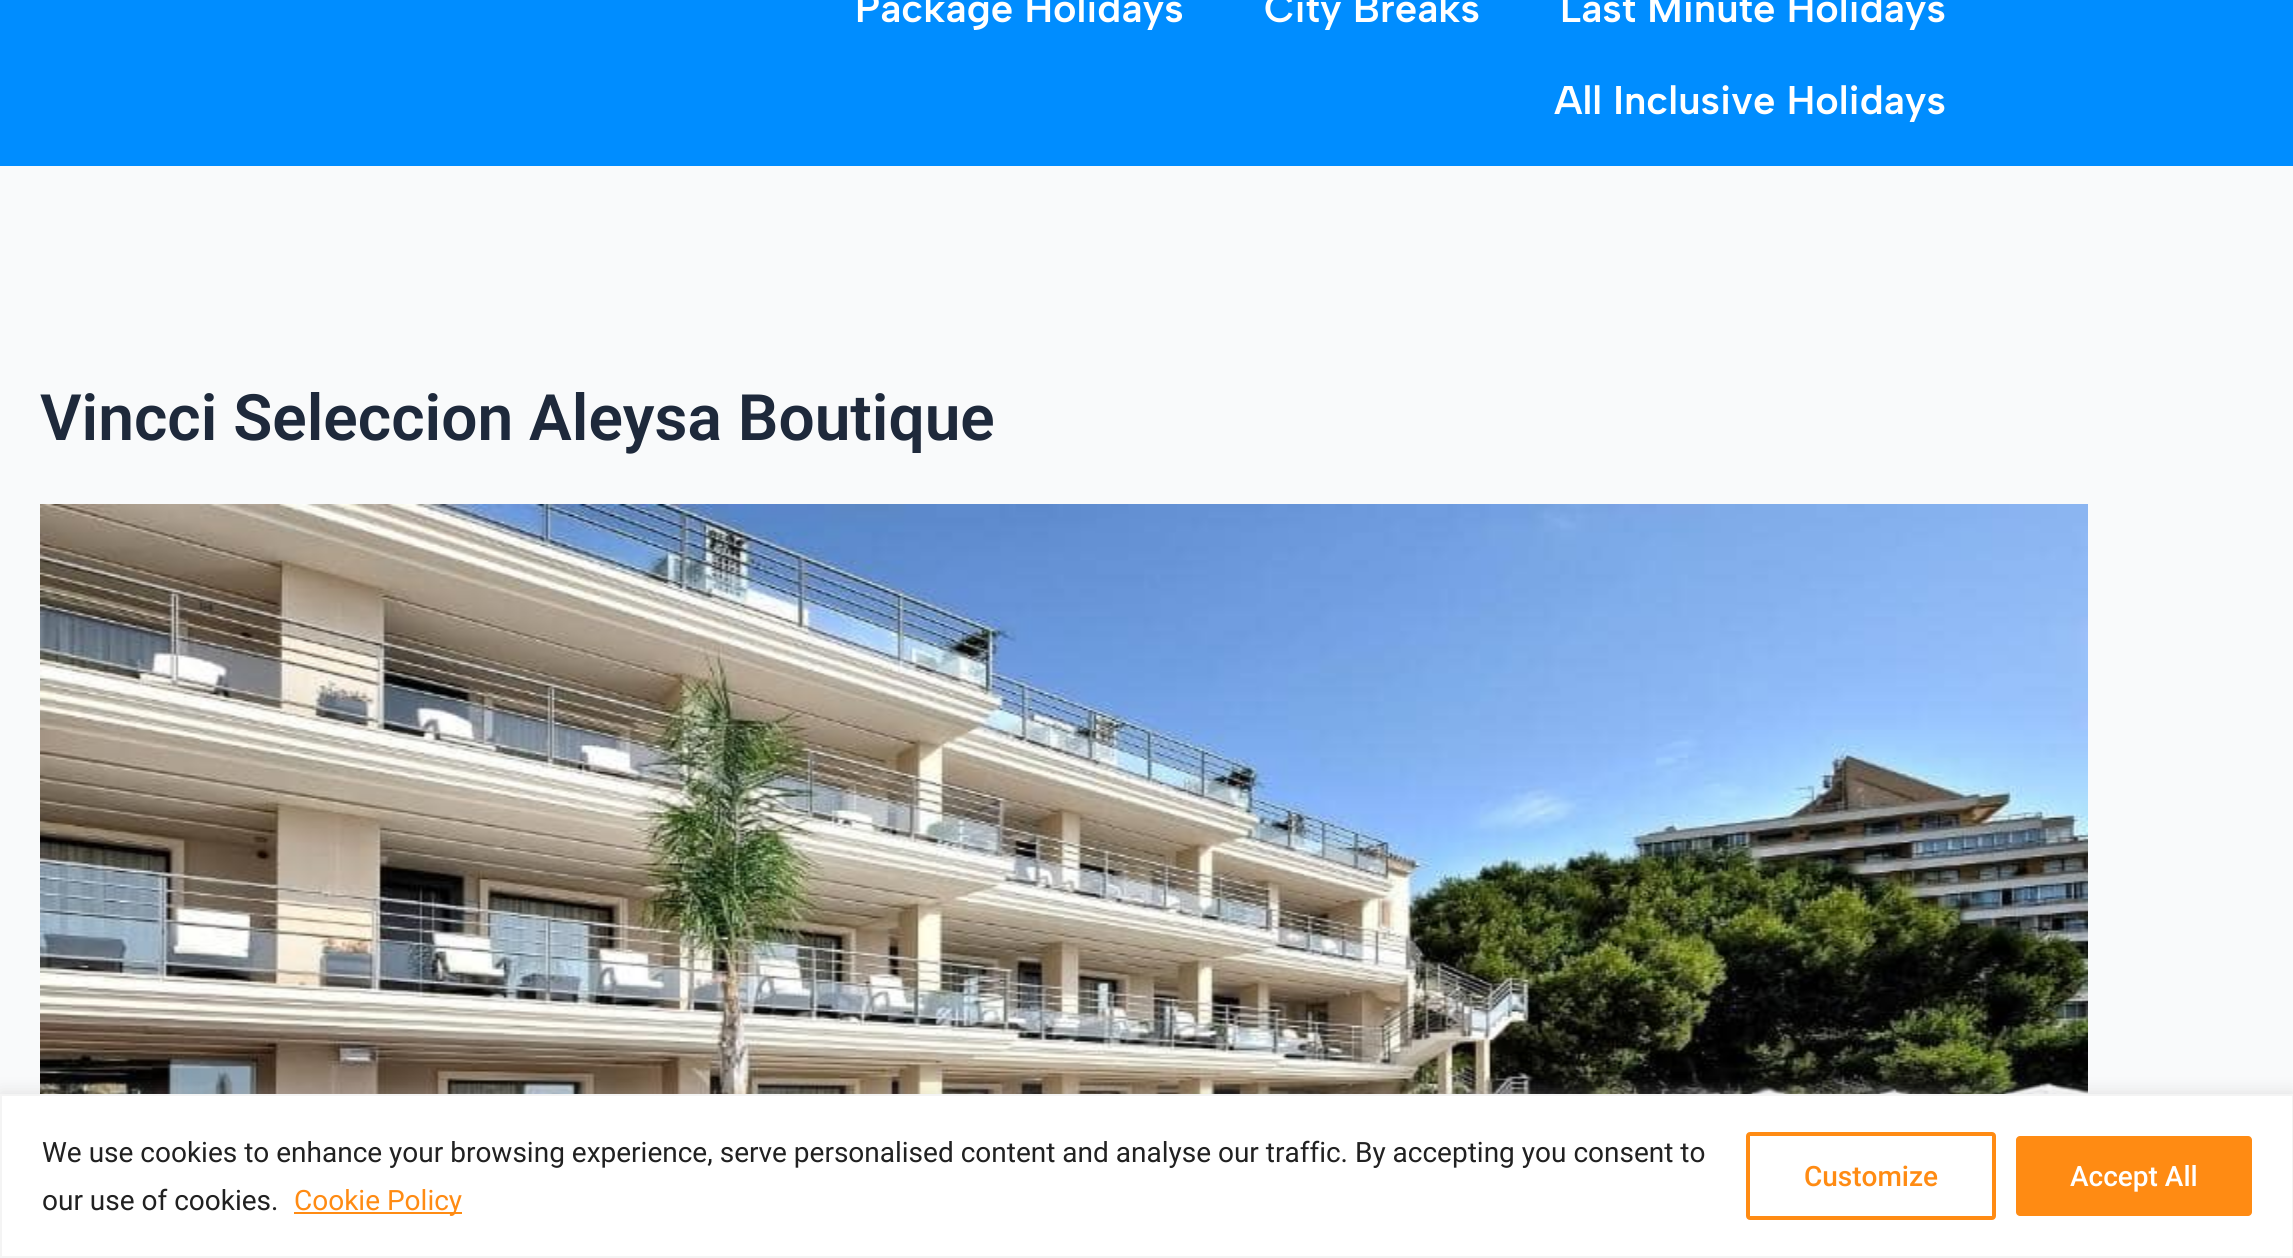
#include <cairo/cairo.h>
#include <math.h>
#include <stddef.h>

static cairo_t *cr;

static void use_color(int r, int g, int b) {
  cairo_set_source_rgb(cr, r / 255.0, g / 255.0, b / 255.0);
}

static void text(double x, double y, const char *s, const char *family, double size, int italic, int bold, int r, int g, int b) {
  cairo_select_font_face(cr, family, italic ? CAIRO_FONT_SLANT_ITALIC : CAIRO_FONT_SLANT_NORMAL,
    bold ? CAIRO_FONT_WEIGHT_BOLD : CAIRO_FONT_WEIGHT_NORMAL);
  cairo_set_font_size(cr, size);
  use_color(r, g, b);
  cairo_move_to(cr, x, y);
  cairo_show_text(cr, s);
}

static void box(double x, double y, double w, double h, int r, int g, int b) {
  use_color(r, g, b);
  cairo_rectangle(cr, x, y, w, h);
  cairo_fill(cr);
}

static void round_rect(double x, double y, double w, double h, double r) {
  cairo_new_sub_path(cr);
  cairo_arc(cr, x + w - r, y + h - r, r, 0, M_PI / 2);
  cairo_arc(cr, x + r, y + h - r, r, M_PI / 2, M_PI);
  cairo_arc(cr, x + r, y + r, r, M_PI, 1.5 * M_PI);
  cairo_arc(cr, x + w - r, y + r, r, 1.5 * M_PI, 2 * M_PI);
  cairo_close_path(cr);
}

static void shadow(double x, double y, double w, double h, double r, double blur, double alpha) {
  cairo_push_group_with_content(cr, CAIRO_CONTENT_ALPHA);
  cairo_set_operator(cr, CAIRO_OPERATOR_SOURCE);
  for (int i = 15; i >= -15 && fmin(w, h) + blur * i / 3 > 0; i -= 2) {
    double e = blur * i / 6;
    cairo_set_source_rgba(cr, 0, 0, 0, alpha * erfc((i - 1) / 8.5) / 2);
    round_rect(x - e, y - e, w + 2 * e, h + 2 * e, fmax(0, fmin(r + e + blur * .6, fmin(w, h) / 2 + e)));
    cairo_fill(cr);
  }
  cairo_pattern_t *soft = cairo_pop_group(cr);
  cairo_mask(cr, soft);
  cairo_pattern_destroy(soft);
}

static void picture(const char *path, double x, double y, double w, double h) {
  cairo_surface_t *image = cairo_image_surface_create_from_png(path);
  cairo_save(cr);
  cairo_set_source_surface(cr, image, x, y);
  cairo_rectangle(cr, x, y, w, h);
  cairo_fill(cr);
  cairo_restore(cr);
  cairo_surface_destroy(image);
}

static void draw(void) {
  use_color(249, 250, 251);
  cairo_paint(cr);
  box(0, 0, 2293, 166, 0, 141, 255);
  picture("img_01.png", 40, 504, 2048, 590);
  use_color(172, 171, 171);
  shadow(0, 1092, 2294, 164, 0, 8, 0.3);
  use_color(255, 255, 255);
  cairo_rectangle(cr, 1, 1095, 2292, 162);
  cairo_fill_preserve(cr);
  use_color(244, 244, 244);
  cairo_stroke(cr);
  box(294, 1212, 168, 2, 255, 139, 19);
  round_rect(1748, 1134, 246, 84, 2);
  cairo_set_line_width(cr, 4);
  cairo_stroke(cr);
  round_rect(2016, 1136, 236, 80, 4);
  cairo_fill(cr);
  text(855, 22, "Package Holidays", "Albert Sans SemiBold", 40, 0, 0, 255, 255, 255);
  text(1264, 22, "City Breaks", "Albert Sans SemiBold", 40, 0, 0, 255, 255, 255);
  text(1560, 22, "Last Minute Holidays", "Albert Sans SemiBold", 40, 0, 0, 255, 255, 255);
  text(1554, 114, "All Inclusive Holidays", "Albert Sans SemiBold", 40, 0, 0, 255, 255, 255);
  text(40, 440, "Vincci Seleccion Aleysa Boutique", "Roboto SemiBold", 64, 0, 0, 30, 41, 59);
  text(42, 1162, "We use cookies to enhance your browsing experience, serve personalised content and analyse our traffic. By accepting you consent to", "Roboto", 28, 0, 0, 33, 33, 33);
  text(42, 1210, "our use of cookies.", "Roboto", 28, 0, 0, 33, 33, 33);
  text(294, 1210, "Cookie Policy", "Roboto", 28, 0, 0, 255, 139, 19);
  text(1804, 1186, "Customize", "Roboto Medium", 28, 0, 0, 255, 139, 19);
  text(2070, 1186, "Accept All", "Roboto Medium", 28, 0, 0, 255, 255, 255);
}

int main(void) {
  cairo_surface_t *surface = cairo_image_surface_create(CAIRO_FORMAT_RGB24, 2293, 1258);
  cr = cairo_create(surface);
  cairo_font_options_t *options = cairo_font_options_create();
  cairo_font_options_set_hint_metrics(options, CAIRO_HINT_METRICS_OFF);
  cairo_font_options_set_hint_style(options, CAIRO_HINT_STYLE_NONE);
  cairo_set_font_options(cr, options);
  cairo_set_miter_limit(cr, 4);
  draw();
  cairo_surface_write_to_png(surface, "out.png");
  cairo_font_options_destroy(options);
  cairo_destroy(cr);
  cairo_surface_destroy(surface);
  return 0;
}
